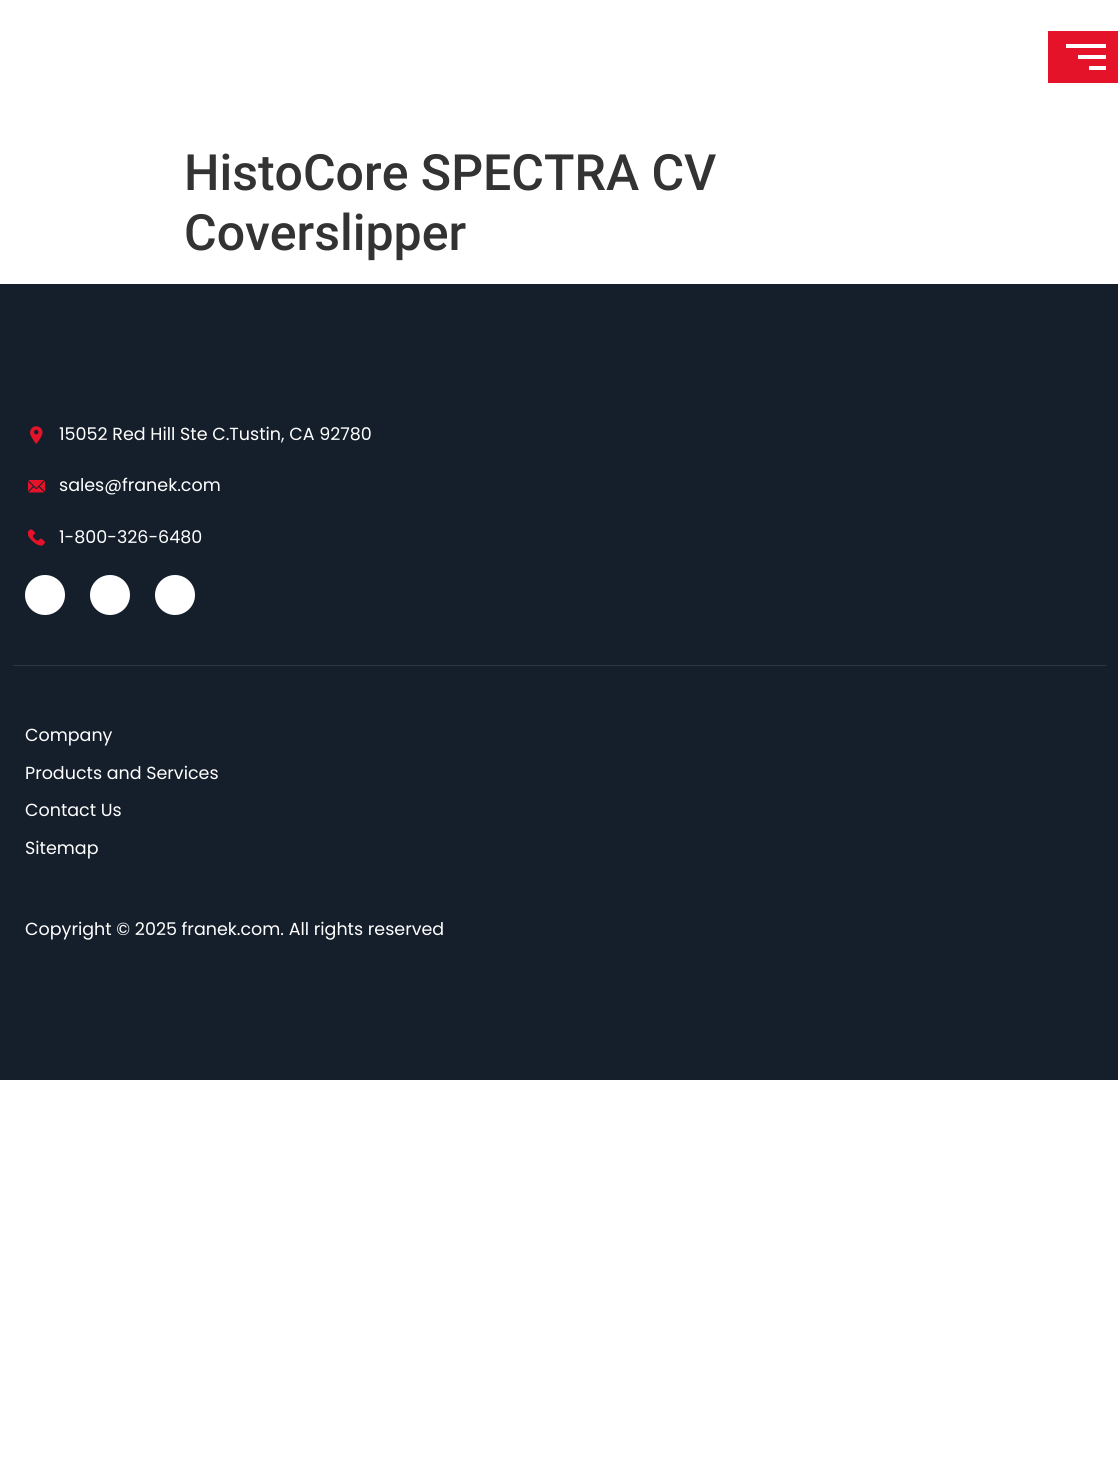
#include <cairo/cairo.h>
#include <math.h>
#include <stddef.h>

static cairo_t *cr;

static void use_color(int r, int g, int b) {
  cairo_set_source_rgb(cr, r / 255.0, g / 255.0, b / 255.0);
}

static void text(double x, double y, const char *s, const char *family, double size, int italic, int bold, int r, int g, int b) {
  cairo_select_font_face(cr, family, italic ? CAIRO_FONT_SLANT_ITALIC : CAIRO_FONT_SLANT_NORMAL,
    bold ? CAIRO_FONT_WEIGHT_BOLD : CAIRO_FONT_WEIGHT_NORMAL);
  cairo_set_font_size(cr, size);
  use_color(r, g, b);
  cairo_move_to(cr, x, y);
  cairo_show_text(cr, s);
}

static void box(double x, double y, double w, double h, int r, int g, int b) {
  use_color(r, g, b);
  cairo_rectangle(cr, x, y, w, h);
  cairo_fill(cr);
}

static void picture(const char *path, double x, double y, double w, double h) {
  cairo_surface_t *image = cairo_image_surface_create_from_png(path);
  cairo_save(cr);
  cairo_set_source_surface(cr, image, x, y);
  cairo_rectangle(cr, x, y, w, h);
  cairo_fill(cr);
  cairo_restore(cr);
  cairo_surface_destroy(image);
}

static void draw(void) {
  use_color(255, 255, 255);
  cairo_paint(cr);
  box(1048, 31, 70, 52, 228, 19, 42);
  use_color(255, 255, 255);
  cairo_new_path(cr);
  cairo_move_to(cr, 1089, 70);
  cairo_line_to(cr, 1106, 70);
  cairo_line_to(cr, 1106, 66);
  cairo_line_to(cr, 1089, 66);
  cairo_close_path(cr);
  cairo_move_to(cr, 1078, 59);
  cairo_line_to(cr, 1106, 59);
  cairo_line_to(cr, 1106, 55);
  cairo_line_to(cr, 1078, 55);
  cairo_close_path(cr);
  cairo_move_to(cr, 1066, 44);
  cairo_line_to(cr, 1066, 48);
  cairo_line_to(cr, 1106, 48);
  cairo_line_to(cr, 1106, 44);
  cairo_close_path(cr);
  cairo_fill(cr);
  box(0, 284, 1118, 796, 21, 31, 43);
  picture("img_01.png", 30, 426, 13, 18);
  picture("img_02.png", 28, 480, 17, 13);
  picture("img_03.png", 28, 529, 17, 17);
  use_color(255, 255, 255);
  cairo_arc(cr, 45, 595, 20, 0, 2 * M_PI);
  cairo_fill(cr);
  cairo_arc(cr, 110, 595, 20, 0, 2 * M_PI);
  cairo_fill(cr);
  cairo_arc(cr, 175, 595, 20, 0, 2 * M_PI);
  cairo_fill(cr);
  box(13, 665, 1093, 1, 45, 54, 65);
  text(184, 190, "HistoCore SPECTRA CV", "Roboto Medium", 50, 0, 0, 51, 51, 51);
  text(184, 250, "Coverslipper", "Roboto Medium", 50, 0, 0, 51, 51, 51);
  text(59, 440, "15052 Red Hill Ste C.Tustin, CA 92780", "Poppins", 17.5, 0, 0, 255, 255, 255);
  text(59, 491, "sales@franek.com", "Poppins", 17.5, 0, 0, 255, 255, 255);
  text(59, 543, "1-800-326-6480", "Poppins", 17.5, 0, 0, 255, 255, 255);
  text(25, 741, "Company", "Poppins", 17.5, 0, 0, 255, 255, 255);
  text(25, 779, "Products and Services", "Poppins", 17.5, 0, 0, 255, 255, 255);
  text(25, 816, "Contact Us", "Poppins", 17.5, 0, 0, 255, 255, 255);
  text(25, 854, "Sitemap", "Poppins", 17.5, 0, 0, 255, 255, 255);
  text(25, 935, "Copyright © 2025 franek.com. All rights reserved", "Poppins", 17.5, 0, 0, 255, 255, 255);
}

int main(void) {
  cairo_surface_t *surface = cairo_image_surface_create(CAIRO_FORMAT_RGB24, 1118, 1484);
  cr = cairo_create(surface);
  cairo_font_options_t *options = cairo_font_options_create();
  cairo_font_options_set_hint_metrics(options, CAIRO_HINT_METRICS_OFF);
  cairo_font_options_set_hint_style(options, CAIRO_HINT_STYLE_NONE);
  cairo_set_font_options(cr, options);
  cairo_set_miter_limit(cr, 4);
  draw();
  cairo_surface_write_to_png(surface, "out.png");
  cairo_font_options_destroy(options);
  cairo_destroy(cr);
  cairo_surface_destroy(surface);
  return 0;
}
